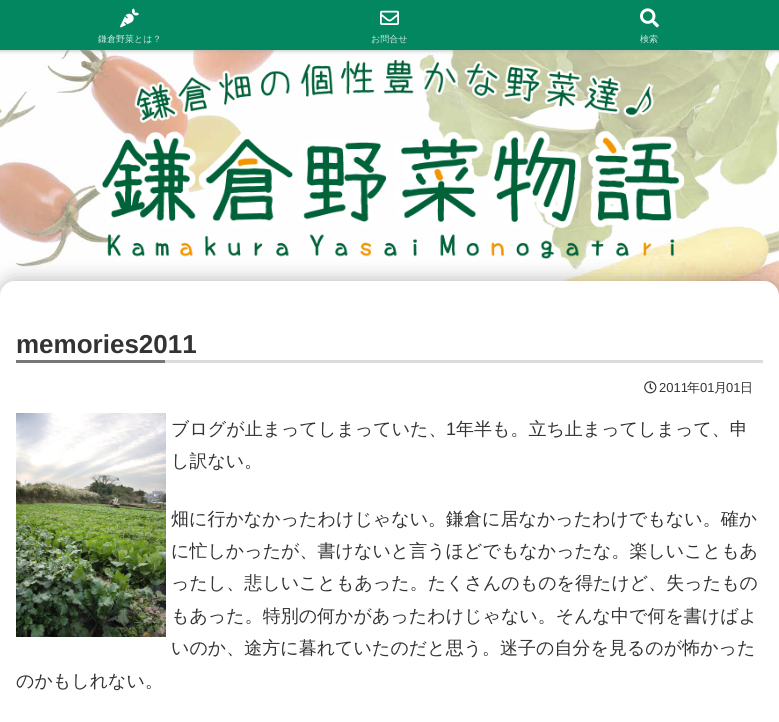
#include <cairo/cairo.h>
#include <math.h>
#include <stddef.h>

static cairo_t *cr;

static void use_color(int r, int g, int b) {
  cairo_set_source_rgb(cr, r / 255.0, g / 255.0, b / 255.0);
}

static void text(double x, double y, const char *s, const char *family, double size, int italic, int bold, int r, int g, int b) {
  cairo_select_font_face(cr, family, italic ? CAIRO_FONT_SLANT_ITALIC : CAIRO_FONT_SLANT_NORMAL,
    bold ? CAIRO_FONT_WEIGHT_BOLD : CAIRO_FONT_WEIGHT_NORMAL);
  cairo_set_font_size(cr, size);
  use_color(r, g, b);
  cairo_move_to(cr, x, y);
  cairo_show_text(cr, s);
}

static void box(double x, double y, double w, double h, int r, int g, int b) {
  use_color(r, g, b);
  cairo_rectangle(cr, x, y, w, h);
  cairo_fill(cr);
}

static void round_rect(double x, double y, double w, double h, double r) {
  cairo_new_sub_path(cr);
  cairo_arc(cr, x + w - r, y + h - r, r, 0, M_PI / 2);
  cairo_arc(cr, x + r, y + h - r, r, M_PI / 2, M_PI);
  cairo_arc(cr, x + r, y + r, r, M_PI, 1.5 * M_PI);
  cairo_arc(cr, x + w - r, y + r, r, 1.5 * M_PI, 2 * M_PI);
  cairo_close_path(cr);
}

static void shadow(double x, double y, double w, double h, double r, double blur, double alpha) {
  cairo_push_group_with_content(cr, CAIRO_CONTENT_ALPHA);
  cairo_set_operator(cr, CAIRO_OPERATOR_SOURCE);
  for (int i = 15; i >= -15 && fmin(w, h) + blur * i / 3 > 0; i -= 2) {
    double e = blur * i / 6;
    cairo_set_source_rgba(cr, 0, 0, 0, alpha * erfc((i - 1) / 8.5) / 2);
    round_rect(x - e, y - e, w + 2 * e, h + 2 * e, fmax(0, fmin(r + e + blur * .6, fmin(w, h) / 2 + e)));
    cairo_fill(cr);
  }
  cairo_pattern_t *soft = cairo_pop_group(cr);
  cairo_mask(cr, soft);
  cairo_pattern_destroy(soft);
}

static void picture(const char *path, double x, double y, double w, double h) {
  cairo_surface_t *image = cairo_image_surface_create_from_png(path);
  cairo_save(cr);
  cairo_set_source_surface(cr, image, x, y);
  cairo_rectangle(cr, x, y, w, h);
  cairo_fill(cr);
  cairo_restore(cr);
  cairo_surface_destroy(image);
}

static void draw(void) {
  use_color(255, 255, 255);
  cairo_paint(cr);
  picture("img_07.png", 0, 50, 779, 246);
  use_color(169, 169, 169);
  shadow(0, 0, 779, 50, 0, 2.5, 1);
  box(0, 0, 779, 50, 2, 135, 96);
  picture("img_01.png", 120, 8, 19, 20);
  picture("img_02.png", 380, 10, 19, 15);
  picture("img_03.png", 640, 8, 19, 20);
  picture("img_04.png", 95, 60, 589, 199);
  use_color(0, 0, 0);
  shadow(0, 281, 779, 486, 15, 10, 0.3);
  use_color(255, 255, 255);
  round_rect(0, 281, 779, 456, 15);
  cairo_fill(cr);
  box(165, 360, 598, 3, 220, 220, 220);
  box(16, 360, 149, 3, 119, 119, 119);
  picture("img_05.png", 644, 381, 13, 13);
  picture("img_06.png", 16, 413, 150, 224);
  text(98, 42, "鎌倉野菜とは？", "WenQuanYi Zen Hei Medium", 9, 0, 0, 204, 231, 223);
  text(371, 42, "お問合せ", "WenQuanYi Zen Hei Medium", 9, 0, 0, 204, 231, 223);
  text(640, 42, "検索", "WenQuanYi Zen Hei Medium", 9, 0, 0, 204, 231, 223);
  text(16, 353, "memories2011", "Liberation Sans", 26, 0, 1, 51, 51, 51);
  text(659, 392, "2011", "Liberation Sans", 13, 0, 0, 51, 51, 51);
  text(687, 392, "年", "WenQuanYi Zen Hei Medium", 13, 0, 0, 51, 51, 51);
  text(700, 392, "01", "Liberation Sans", 13, 0, 0, 51, 51, 51);
  text(714, 392, "月", "WenQuanYi Zen Hei Medium", 13, 0, 0, 51, 51, 51);
  text(726, 392, "01", "Liberation Sans", 13, 0, 0, 51, 51, 51);
  text(740, 392, "日", "WenQuanYi Zen Hei Medium", 13, 0, 0, 51, 51, 51);
  text(171, 435, "ブログが止まってしまっていた、", "WenQuanYi Zen Hei Medium", 18, 0, 0, 51, 51, 51);
  text(446, 435, "1", "Liberation Sans", 18, 0, 0, 51, 51, 51);
  text(456, 435, "年半も。立ち止まってしまって、申", "WenQuanYi Zen Hei Medium", 18, 0, 0, 51, 51, 51);
  text(171, 467, "し訳ない。", "WenQuanYi Zen Hei Medium", 18, 0, 0, 51, 51, 51);
  text(171, 525, "畑に行かなかったわけじゃない。鎌倉に居なかったわけでもない。確か", "WenQuanYi Zen Hei Medium", 18, 0, 0, 51, 51, 51);
  text(171, 557, "に忙しかったが、書けないと言うほどでもなかったな。楽しいこともあ", "WenQuanYi Zen Hei Medium", 18, 0, 0, 51, 51, 51);
  text(171, 589, "ったし、悲しいこともあった。たくさんのものを得たけど、失ったもの", "WenQuanYi Zen Hei Medium", 18, 0, 0, 51, 51, 51);
  text(171, 622, "もあった。特別の何かがあったわけじゃない。そんな中で何を書けばよ", "WenQuanYi Zen Hei Medium", 18, 0, 0, 51, 51, 51);
  text(171, 654, "いのか、途方に暮れていたのだと思う。迷子の自分を見るのが怖かった", "WenQuanYi Zen Hei Medium", 18, 0, 0, 51, 51, 51);
  text(16, 687, "のかもしれない。", "WenQuanYi Zen Hei Medium", 18, 0, 0, 51, 51, 51);
}

int main(void) {
  cairo_surface_t *surface = cairo_image_surface_create(CAIRO_FORMAT_RGB24, 779, 722);
  cr = cairo_create(surface);
  cairo_font_options_t *options = cairo_font_options_create();
  cairo_font_options_set_hint_metrics(options, CAIRO_HINT_METRICS_OFF);
  cairo_font_options_set_hint_style(options, CAIRO_HINT_STYLE_NONE);
  cairo_set_font_options(cr, options);
  cairo_set_miter_limit(cr, 4);
  draw();
  cairo_surface_write_to_png(surface, "out.png");
  cairo_font_options_destroy(options);
  cairo_destroy(cr);
  cairo_surface_destroy(surface);
  return 0;
}
